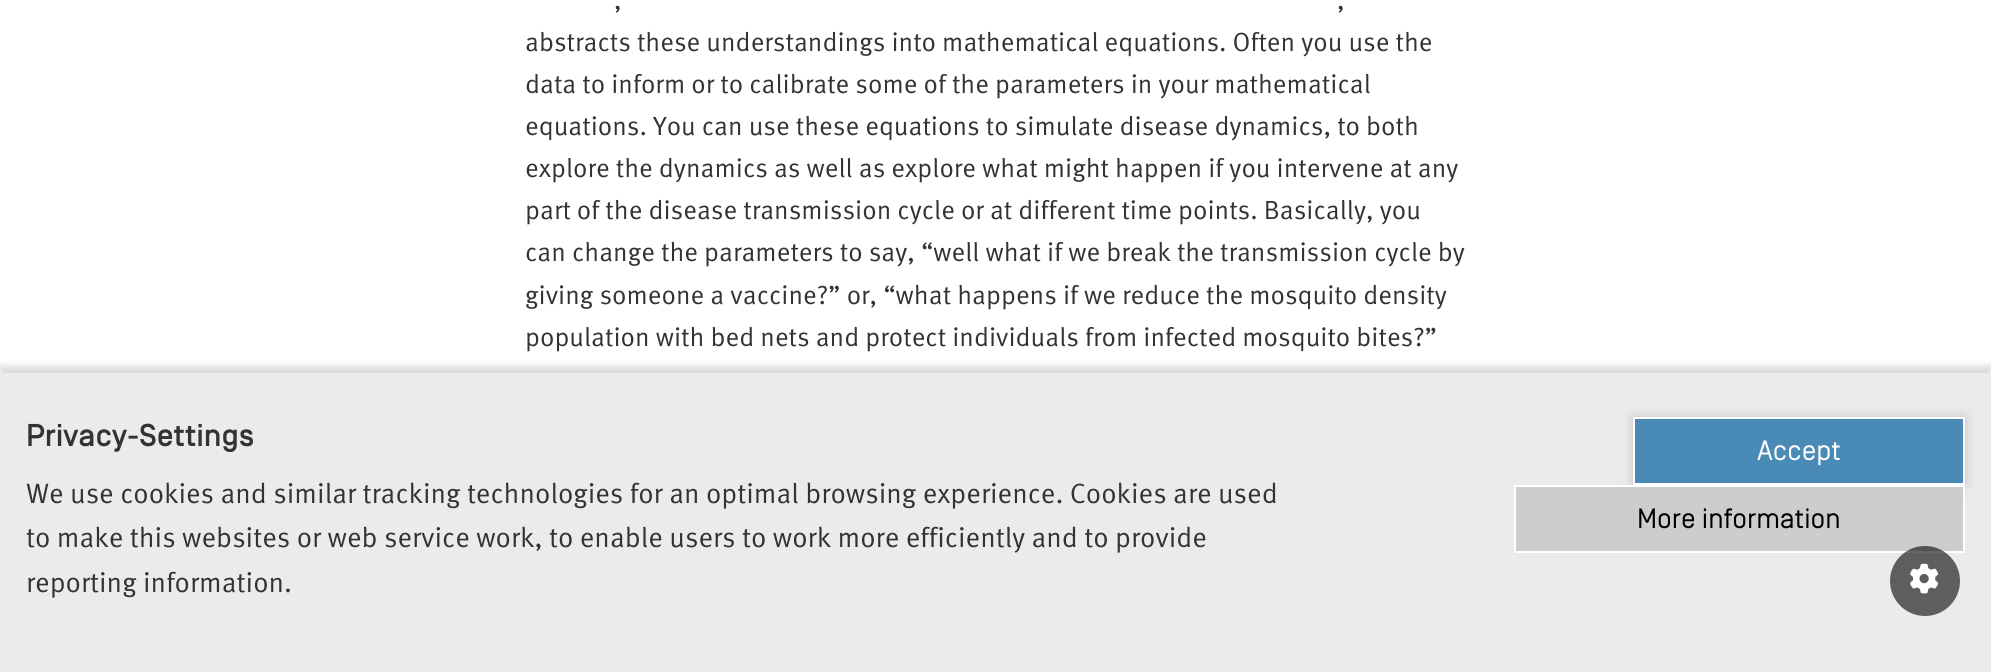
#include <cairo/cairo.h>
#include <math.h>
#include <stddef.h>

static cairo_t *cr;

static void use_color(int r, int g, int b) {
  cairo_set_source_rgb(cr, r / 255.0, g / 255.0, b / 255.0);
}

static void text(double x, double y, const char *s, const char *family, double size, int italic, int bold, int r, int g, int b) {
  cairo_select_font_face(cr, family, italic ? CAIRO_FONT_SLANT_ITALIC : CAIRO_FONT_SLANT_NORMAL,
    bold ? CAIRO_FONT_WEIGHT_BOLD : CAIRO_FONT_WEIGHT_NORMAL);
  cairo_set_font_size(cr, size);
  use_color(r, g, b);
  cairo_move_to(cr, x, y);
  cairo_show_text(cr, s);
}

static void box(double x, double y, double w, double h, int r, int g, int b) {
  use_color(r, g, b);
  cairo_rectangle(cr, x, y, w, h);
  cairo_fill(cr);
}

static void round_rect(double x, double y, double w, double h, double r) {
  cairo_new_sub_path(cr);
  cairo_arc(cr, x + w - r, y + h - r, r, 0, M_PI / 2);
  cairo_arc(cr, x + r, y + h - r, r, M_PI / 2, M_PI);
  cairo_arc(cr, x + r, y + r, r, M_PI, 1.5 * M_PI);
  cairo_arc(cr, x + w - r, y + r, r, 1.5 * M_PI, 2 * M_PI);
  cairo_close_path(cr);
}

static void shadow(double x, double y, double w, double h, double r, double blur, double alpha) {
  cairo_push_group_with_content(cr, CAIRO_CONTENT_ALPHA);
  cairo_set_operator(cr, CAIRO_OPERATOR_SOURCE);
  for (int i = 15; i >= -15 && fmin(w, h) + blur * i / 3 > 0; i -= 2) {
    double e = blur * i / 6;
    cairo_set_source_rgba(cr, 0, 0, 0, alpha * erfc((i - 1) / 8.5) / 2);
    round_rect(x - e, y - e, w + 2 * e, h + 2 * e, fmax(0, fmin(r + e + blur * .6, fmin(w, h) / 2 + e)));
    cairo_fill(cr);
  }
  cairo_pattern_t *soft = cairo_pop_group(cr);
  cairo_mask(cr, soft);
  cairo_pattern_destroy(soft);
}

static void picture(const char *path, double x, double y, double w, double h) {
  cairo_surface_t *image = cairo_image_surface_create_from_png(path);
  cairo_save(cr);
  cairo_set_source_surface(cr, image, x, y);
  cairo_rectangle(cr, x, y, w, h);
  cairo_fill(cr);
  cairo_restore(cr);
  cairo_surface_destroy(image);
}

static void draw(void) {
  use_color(255, 255, 255);
  cairo_paint(cr);
  use_color(0, 0, 0);
  shadow(0, 366, 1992, 299, 0, 3.5, 0.15);
  box(0, 373, 1991, 299, 235, 235, 235);
  use_color(0, 0, 0);
  shadow(1633, 417, 332, 68, 0, 6, 0.17);
  use_color(73, 139, 182);
  cairo_rectangle(cr, 1634, 418, 330, 66);
  cairo_fill_preserve(cr);
  use_color(255, 255, 255);
  cairo_stroke(cr);
  use_color(205, 205, 205);
  cairo_rectangle(cr, 1515, 486, 449, 66);
  cairo_fill_preserve(cr);
  use_color(255, 255, 255);
  cairo_stroke(cr);
  cairo_set_source_rgba(cr, 0, 0, 0, 0.6);
  cairo_arc(cr, 1925, 581, 35, 0, 2 * M_PI);
  cairo_fill(cr);
  picture("img_01.png", 1910, 563, 29, 31);
  text(614, 9, ",", "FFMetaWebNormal", 26.3, 0, 0, 51, 51, 51);
  text(1337, 9, ",", "FFMetaWebNormal", 26.3, 0, 0, 51, 51, 51);
  text(525, 51, "abstracts these understandings into mathematical equations. Often you use the", "FFMetaWebNormal", 26.3, 0, 0, 51, 51, 51);
  text(525, 93, "data to inform or to calibrate some of the parameters in your mathematical", "FFMetaWebNormal", 26.3, 0, 0, 51, 51, 51);
  text(525, 135, "equations. You can use these equations to simulate disease dynamics, to both", "FFMetaWebNormal", 26.3, 0, 0, 51, 51, 51);
  text(525, 177, "explore the dynamics as well as explore what might happen if you intervene at any", "FFMetaWebNormal", 26.3, 0, 0, 51, 51, 51);
  text(525, 219, "part of the disease transmission cycle or at different time points. Basically, you", "FFMetaWebNormal", 26.3, 0, 0, 51, 51, 51);
  text(525, 261, "can change the parameters to say, “well what if we break the transmission cycle by", "FFMetaWebNormal", 26.3, 0, 0, 51, 51, 51);
  text(525, 304, "giving someone a vaccine?” or, “what happens if we reduce the mosquito density", "FFMetaWebNormal", 26.3, 0, 0, 51, 51, 51);
  text(525, 346, "population with bed nets and protect individuals from infected mosquito bites?”", "FFMetaWebNormal", 26.3, 0, 0, 51, 51, 51);
  text(26, 446, "Privacy-Settings", "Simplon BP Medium", 31.5, 0, 0, 51, 51, 51);
  text(26, 503, "We use cookies and similar tracking technologies for an optimal browsing experience. Cookies are used", "FFMetaWebNormal", 28, 0, 0, 51, 51, 51);
  text(26, 547, "to make this websites or web service work, to enable users to work more efficiently and to provide", "FFMetaWebNormal", 28, 0, 0, 51, 51, 51);
  text(26, 592, "reporting information.", "FFMetaWebNormal", 28, 0, 0, 51, 51, 51);
  text(1757, 460, "Accept", "Simplon BP", 28, 0, 0, 255, 255, 255);
  text(1637, 528, "More information", "Simplon BP", 28, 0, 0, 0, 0, 0);
}

int main(void) {
  cairo_surface_t *surface = cairo_image_surface_create(CAIRO_FORMAT_RGB24, 1991, 672);
  cr = cairo_create(surface);
  cairo_font_options_t *options = cairo_font_options_create();
  cairo_font_options_set_hint_metrics(options, CAIRO_HINT_METRICS_OFF);
  cairo_font_options_set_hint_style(options, CAIRO_HINT_STYLE_NONE);
  cairo_set_font_options(cr, options);
  cairo_set_miter_limit(cr, 4);
  draw();
  cairo_surface_write_to_png(surface, "out.png");
  cairo_font_options_destroy(options);
  cairo_destroy(cr);
  cairo_surface_destroy(surface);
  return 0;
}
